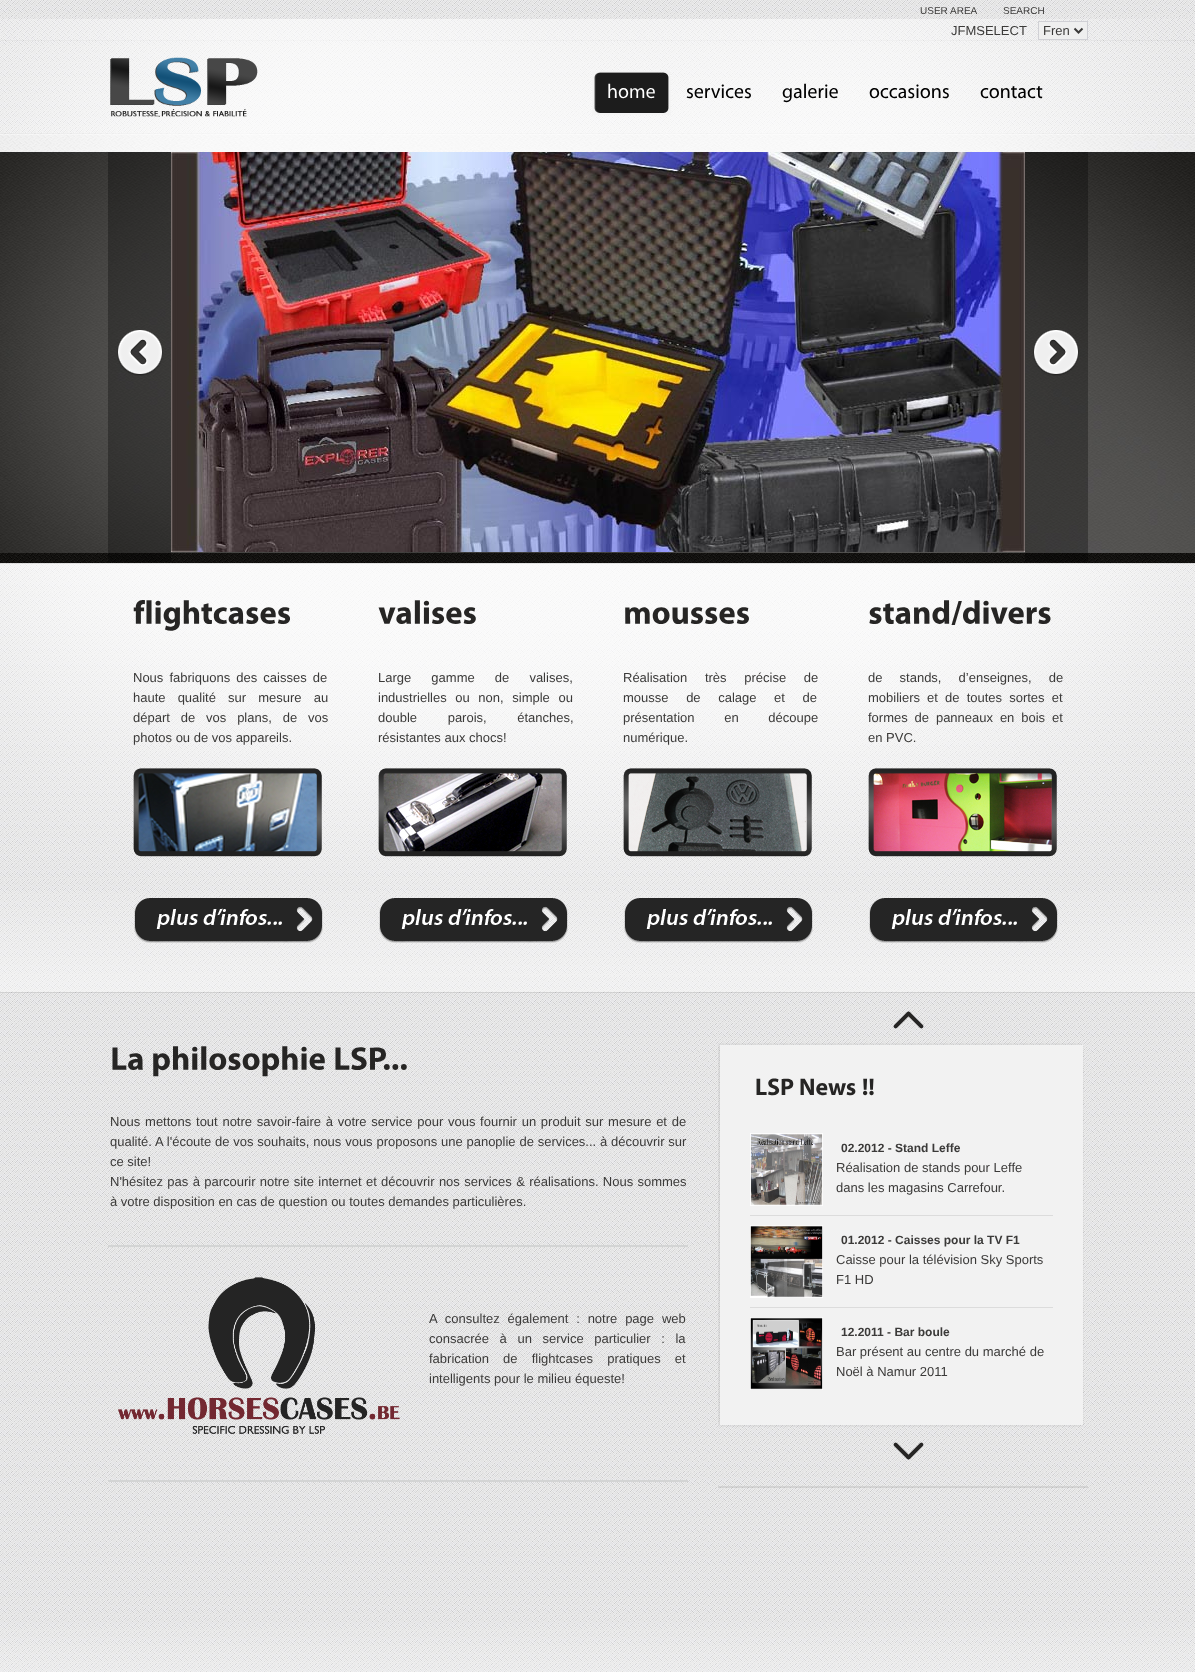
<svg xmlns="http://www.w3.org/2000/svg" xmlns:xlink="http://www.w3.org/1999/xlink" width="1195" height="1672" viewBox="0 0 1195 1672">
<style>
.cls-1{font:10px Liberation Sans;fill:#3b3a39}
.cls-2{font:13px Liberation Sans;fill:#3b3a39}
.cls-3{font:bold 12px Liberation Sans;fill:#3b3a39}
</style>
<rect width="100%" height="100%" fill="#ffffff"/>
<image xlink:href="image0.png" x="0" y="0" width="1195" height="1672"/>
<image xlink:href="image1.png" x="0" y="18" width="1195" height="23"/>
<image xlink:href="image2.png" x="0" y="19" width="1195" height="22"/>
<rect fill="#efefef" stroke="#d0d0d5" x="1038.5" y="21.5" width="49" height="18"/>
<path fill="none" stroke="#3b3a39" stroke-width="2" d="M1074.5 28.5L1078.5 32.5L1082.5 28.5"/>
<image xlink:href="image3.png" x="0" y="41" width="1195" height="92"/>
<image xlink:href="image4.png" x="110" y="57" width="148" height="60"/>
<image xlink:href="image5.png" x="592" y="71" width="79" height="44"/>
<image xlink:href="image6.png" x="592" y="72" width="8" height="41"/>
<image xlink:href="image7.png" x="608" y="83" width="47" height="16"/>
<image xlink:href="image8.png" x="686" y="84" width="65" height="15"/>
<image xlink:href="image9.png" x="782" y="83" width="56" height="20"/>
<image xlink:href="image10.png" x="869" y="84" width="80" height="15"/>
<image xlink:href="image11.png" x="980" y="86" width="63" height="13"/>
<image xlink:href="image12.png" x="0" y="553" width="1195" height="10"/>
<image xlink:href="image13.png" x="0" y="133" width="1195" height="420"/>
<rect fill="#000000" fill-opacity="0.3" x="108" y="152" width="63" height="410"/>
<image xlink:href="image14.png" x="117" y="330" width="46" height="46"/>
<image xlink:href="image15.png" x="171" y="152" width="854" height="400"/>
<rect fill="#000000" fill-opacity="0.3" x="1025" y="152" width="63" height="410"/>
<image xlink:href="image16.png" x="1033" y="330" width="46" height="46"/>
<image xlink:href="image17.png" x="0" y="563" width="1195" height="414"/>
<image xlink:href="image18.png" x="0" y="890" width="1195" height="103"/>
<image xlink:href="image19.png" x="133" y="600" width="157" height="31"/>
<image xlink:href="image20.png" x="133" y="768" width="189" height="89"/>
<image xlink:href="image21.png" x="134" y="898" width="189" height="45"/>
<image xlink:href="image22.png" x="378" y="600" width="98" height="24"/>
<image xlink:href="image23.png" x="378" y="768" width="189" height="89"/>
<image xlink:href="image24.png" x="379" y="898" width="189" height="45"/>
<image xlink:href="image25.png" x="625" y="607" width="124" height="17"/>
<image xlink:href="image26.png" x="623" y="768" width="189" height="89"/>
<image xlink:href="image27.png" x="624" y="898" width="189" height="45"/>
<image xlink:href="image28.png" x="869" y="600" width="182" height="25"/>
<image xlink:href="image29.png" x="868" y="768" width="189" height="89"/>
<image xlink:href="image30.png" x="869" y="898" width="189" height="45"/>
<image xlink:href="image31.png" x="0" y="1624" width="1195" height="48"/>
<image xlink:href="image32.png" x="112" y="1047" width="31" height="23"/>
<image xlink:href="image33.png" x="153" y="1046" width="172" height="31"/>
<image xlink:href="image34.png" x="335" y="1047" width="72" height="23"/>
<rect fill="#d3d4d4" x="108" y="1245" width="580" height="2"/>
<image xlink:href="image35.png" x="118" y="1277" width="282" height="157"/>
<rect fill="#d3d4d4" x="108" y="1480" width="580" height="2"/>
<image xlink:href="image36.png" x="893" y="1011" width="31" height="18"/>
<image xlink:href="image37.png" x="730" y="1043" width="354" height="356"/>
<image xlink:href="image38.png" x="718" y="1043" width="12" height="356"/>
<image xlink:href="image39.png" x="756" y="1078" width="38" height="18"/>
<image xlink:href="image40.png" x="800" y="1078" width="56" height="18"/>
<image xlink:href="image41.png" x="863" y="1078" width="11" height="18"/>
<rect fill="#dcdcdc" x="750" y="1215" width="303" height="1"/>
<image xlink:href="image42.png" x="750" y="1133" width="73" height="73"/>
<rect fill="#dcdcdc" x="750" y="1307" width="303" height="1"/>
<image xlink:href="image43.png" x="750" y="1225" width="73" height="73"/>
<image xlink:href="image44.png" x="750" y="1317" width="73" height="73"/>
<image xlink:href="image45.png" x="730" y="1399" width="354" height="28"/>
<image xlink:href="image46.png" x="718" y="1399" width="12" height="28"/>
<image xlink:href="image47.png" x="893" y="1442" width="31" height="18"/>
<rect fill="#272727" fill-opacity="0.1" x="718" y="1486" width="370" height="2"/>
<text class="cls-1" x="920" y="14">USER AREA</text>
<text class="cls-1" x="1003" y="14">SEARCH</text>
<text class="cls-2" x="951" y="35">JFMSELECT</text>
<text class="cls-2" x="1043" y="35">Fren</text>
<text class="cls-2"><tspan x="133" y="682" word-spacing="2.5">Nous fabriquons des caisses de</tspan><tspan x="133" y="702" word-spacing="8.5">haute qualité sur mesure au</tspan><tspan x="133" y="722" word-spacing="7.25">départ de vos plans, de vos</tspan><tspan x="133" y="742">photos ou de vos appareils.</tspan></text>
<text class="cls-2"><tspan x="378" y="682" word-spacing="16.5">Large gamme de valises,</tspan><tspan x="378" y="702" word-spacing="5">industrielles ou non, simple ou</tspan><tspan x="378" y="722" word-spacing="27">double parois, étanches,</tspan><tspan x="378" y="742">résistantes aux chocs!</tspan></text>
<text class="cls-2"><tspan x="623" y="682" word-spacing="14">Réalisation très précise de</tspan><tspan x="623" y="702" word-spacing="14">mousse de calage et de</tspan><tspan x="623" y="722" word-spacing="26">présentation en découpe</tspan><tspan x="623" y="742">numérique.</tspan></text>
<text class="cls-2"><tspan x="868" y="682" word-spacing="13.5">de stands, d’enseignes, de</tspan><tspan x="868" y="702" word-spacing="3.5">mobiliers et de toutes sortes et</tspan><tspan x="868" y="722" word-spacing="3.25">formes de panneaux en bois et</tspan><tspan x="868" y="742">en PVC.</tspan></text>
<text class="cls-2"><tspan x="110" y="1126" word-spacing="1.1">Nous mettons tout notre savoir-faire à votre service pour vous fournir un produit sur mesure et de</tspan><tspan x="110" y="1146" word-spacing="0.2">qualité. A l'écoute de vos souhaits, nous vous proposons une panoplie de services... à découvrir sur</tspan><tspan x="110" y="1166">ce site!</tspan><tspan x="110" y="1186" word-spacing="0.7">N'hésitez pas à parcourir notre site internet et découvrir nos services &amp; réalisations. Nous sommes</tspan><tspan x="110" y="1206">à votre disposition en cas de question ou toutes demandes particulières.</tspan></text>
<text class="cls-2"><tspan x="429" y="1323" word-spacing="4.25">A consultez également : notre page web</tspan><tspan x="429" y="1343" word-spacing="7">consacrée à un service particulier : la</tspan><tspan x="429" y="1363" word-spacing="10.5">fabrication de flightcases pratiques et</tspan><tspan x="429" y="1383">intelligents pour le milieu équeste!</tspan></text>
<text class="cls-3" x="841" y="1152">02.2012 - Stand Leffe</text>
<text class="cls-2"><tspan x="836" y="1172">Réalisation de stands pour Leffe</tspan><tspan x="836" y="1192">dans les magasins Carrefour.</tspan></text>
<text class="cls-3" x="841" y="1244">01.2012 - Caisses pour la TV F1</text>
<text class="cls-2"><tspan x="836" y="1264">Caisse pour la télévision Sky Sports</tspan><tspan x="836" y="1284">F1 HD</tspan></text>
<text class="cls-3" x="841" y="1336">12.2011 - Bar boule</text>
<text class="cls-2"><tspan x="836" y="1356">Bar présent au centre du marché de</tspan><tspan x="836" y="1376">Noël à Namur 2011</tspan></text>
</svg>
